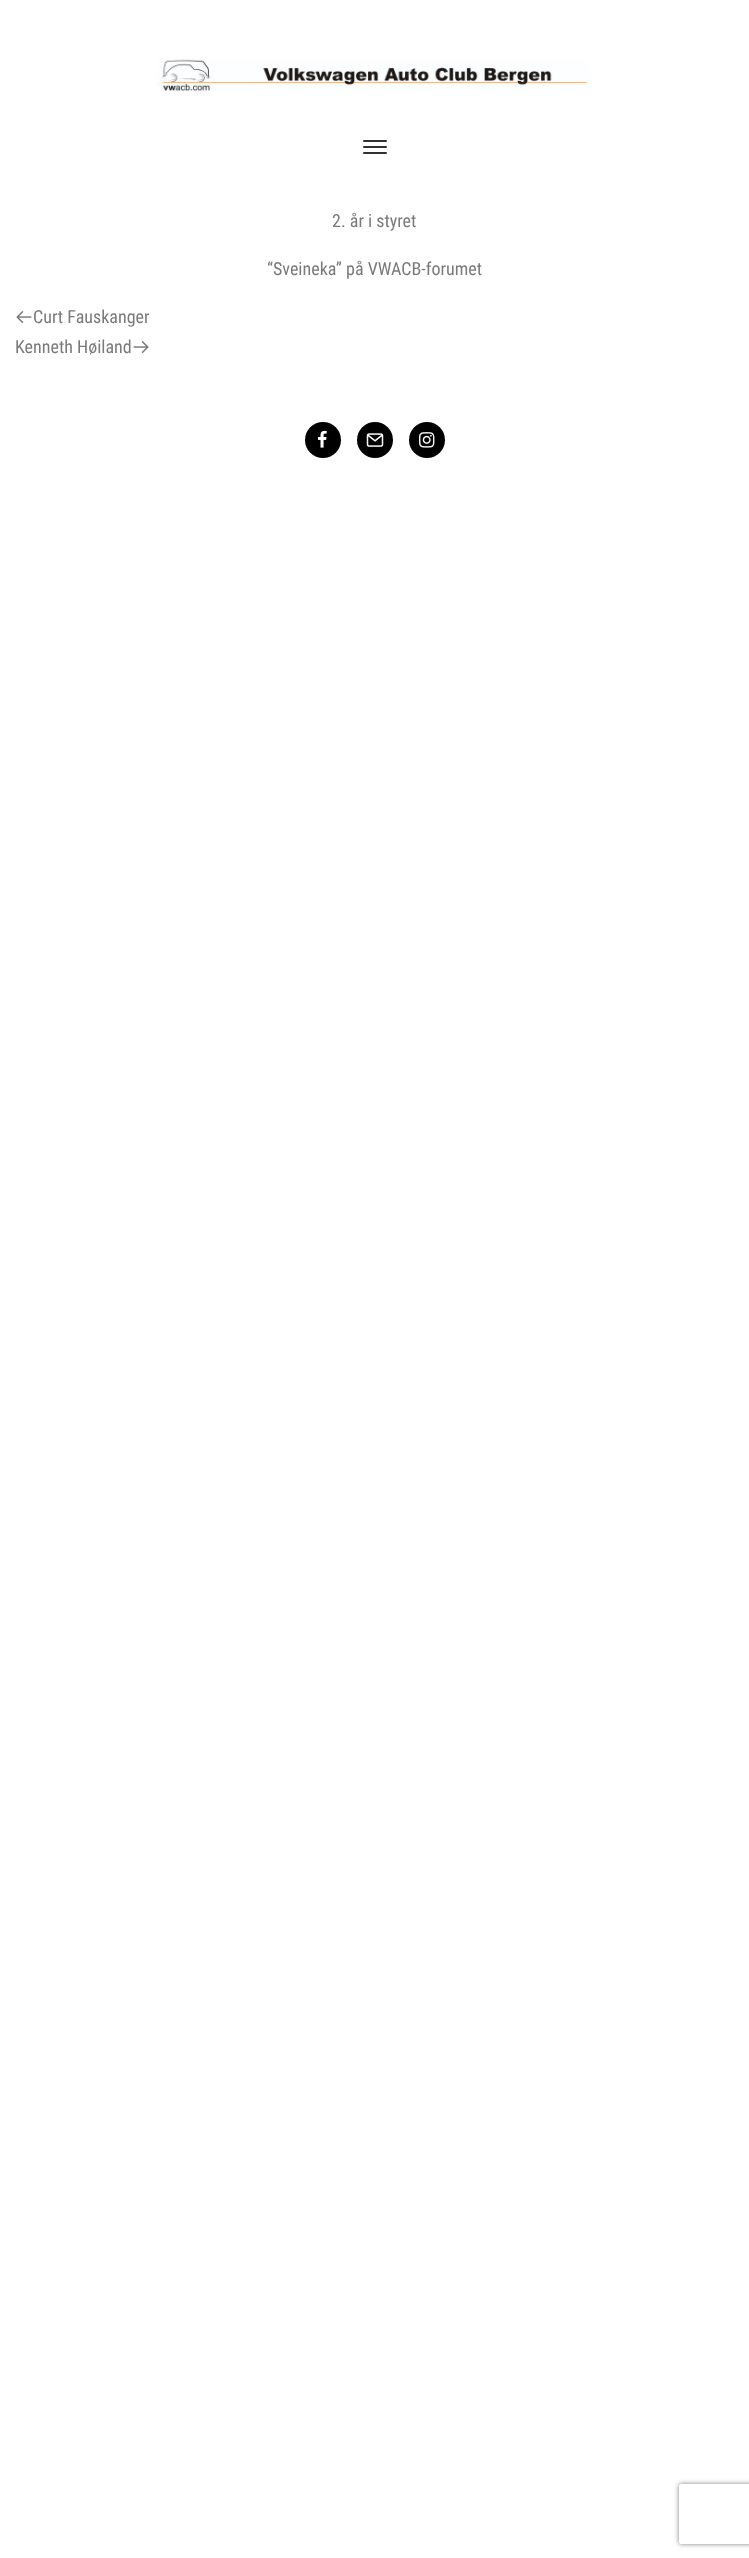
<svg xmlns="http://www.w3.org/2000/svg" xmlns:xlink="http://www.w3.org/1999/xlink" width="749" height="2558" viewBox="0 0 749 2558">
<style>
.cls-1{font:18px Roboto Condensed;fill:#7a7a7a}
</style>
<defs>
<clipPath id="clip1"><path d="M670 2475H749V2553H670ZM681 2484H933C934 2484 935 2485 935 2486V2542C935 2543 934 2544 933 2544H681C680 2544 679 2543 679 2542V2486C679 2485 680 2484 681 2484Z" clip-rule="evenodd"/></clipPath>
</defs>
<rect width="100%" height="100%" fill="#ffffff"/>
<image xlink:href="image0.png" x="157" y="59" width="432" height="33"/>
<rect fill="#303133" x="363" y="140" width="24" height="2" rx="1"/>
<rect fill="#303133" x="363" y="146" width="24" height="2" rx="1"/>
<rect fill="#303133" x="363" y="152" width="24" height="2" rx="1"/>
<image xlink:href="image1.png" x="16" y="311" width="16" height="12"/>
<image xlink:href="image2.png" x="133" y="341" width="16" height="12"/>
<circle fill="#000000" cx="323" cy="440" r="18"/>
<image xlink:href="image3.png" x="317" y="430" width="10" height="18"/>
<circle fill="#000000" cx="375" cy="440" r="18"/>
<image xlink:href="image4.png" x="366" y="433" width="18" height="14"/>
<circle fill="#000000" cx="427" cy="440" r="18"/>
<image xlink:href="image5.png" x="419" y="432" width="16" height="16"/>
<g clip-path="url(#clip1)">
<rect fill="#808080" filter="blur(2.5px)" x="679" y="2484" width="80" height="60" rx="2"/>
</g>
<text class="cls-1" x="332" y="227">2. år i styret</text>
<text class="cls-1" x="267" y="275">“Sveineka” på VWACB-forumet</text>
<text class="cls-1" x="33" y="323">Curt Fauskanger</text>
<text class="cls-1" x="15" y="353">Kenneth Høiland</text>
</svg>
